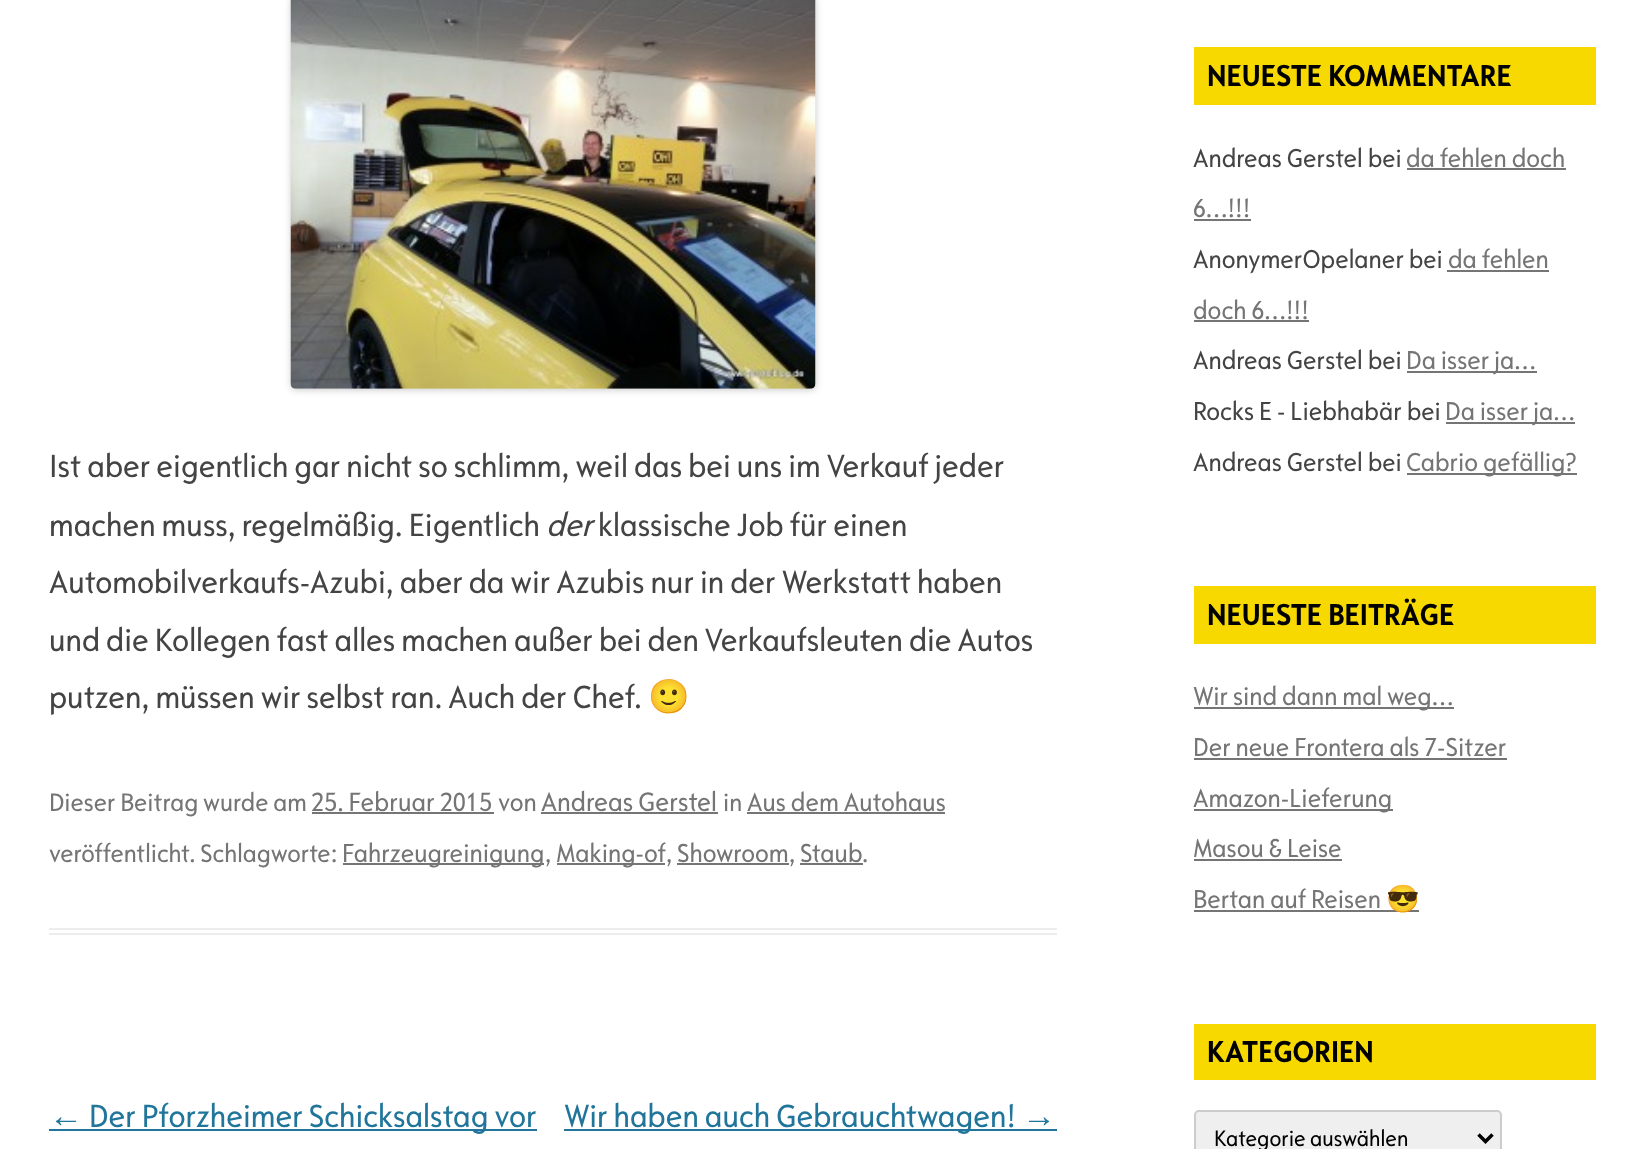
<svg xmlns="http://www.w3.org/2000/svg" xmlns:xlink="http://www.w3.org/1999/xlink" width="1644" height="1149" viewBox="0 0 1644 1149">
<style>
.cls-1{font:33.45px 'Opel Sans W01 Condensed';fill:#444444}
.cls-2{font:italic 34px 'Opel Sans W01 Condensed';fill:#444444}
.cls-3{font:33.45px Noto Color Emoji;fill:#444444}
.cls-4{font:26.5px 'Opel Sans W01 Condensed';fill:#757575}
.cls-5{font:27.5px 'Opel Sans W01 Condensed';fill:#757575}
.cls-6{font:27px 'Opel Sans W01 Condensed';fill:#757575}
.cls-7{font:28px 'Opel Sans W01 Condensed';fill:#757575}
.cls-8{font:34px Liberation Sans;fill:#21759b}
.cls-9{font:33.45px 'Opel Sans W01 Condensed';fill:#21759b}
.cls-10{font:bold 31.5px 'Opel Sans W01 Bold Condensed';fill:#000000}
.cls-11{font:27px 'Opel Sans W01 Condensed';fill:#444444}
.cls-12{font:26.5px 'Opel Sans W01 Condensed';fill:#444444}
.cls-13{font:27px Noto Color Emoji;fill:#757575}
.cls-14{font:23.25px 'Opel Sans W01 Condensed';fill:#000000}
</style>
<rect width="100%" height="100%" fill="#ffffff"/>
<rect fill="#ededed" x="49" y="928" width="1008" height="2"/>
<rect fill="#ededed" x="49" y="933" width="1008" height="2"/>
<rect fill="#000000" fill-opacity="0.2" filter="blur(3.5px)" x="291" y="-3" width="525" height="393" rx="5"/>
<image xlink:href="image0.png" x="290" y="0" width="526" height="389"/>
<rect fill="#757575" x="312" y="812" width="182" height="2"/>
<rect fill="#757575" x="541" y="812" width="177" height="2"/>
<rect fill="#757575" x="747" y="812" width="198" height="2"/>
<rect fill="#757575" x="343" y="863" width="201" height="2"/>
<rect fill="#757575" x="557" y="863" width="108" height="2"/>
<rect fill="#757575" x="677" y="863" width="112" height="2"/>
<rect fill="#757575" x="800" y="863" width="63" height="2"/>
<rect fill="#21759b" x="49" y="1129" width="488" height="2"/>
<rect fill="#21759b" x="564" y="1129" width="493" height="2"/>
<rect fill="#f7d900" x="1194" y="47" width="402" height="58"/>
<rect fill="#757575" x="1407" y="168" width="159" height="2"/>
<rect fill="#757575" x="1194" y="219" width="57" height="2"/>
<rect fill="#757575" x="1447" y="270" width="102" height="2"/>
<rect fill="#757575" x="1194" y="320" width="115" height="2"/>
<rect fill="#757575" x="1407" y="371" width="130" height="2"/>
<rect fill="#757575" x="1446" y="422" width="129" height="2"/>
<rect fill="#757575" x="1407" y="473" width="170" height="2"/>
<rect fill="#f7d900" x="1194" y="586" width="402" height="58"/>
<rect fill="#757575" x="1194" y="707" width="260" height="2"/>
<rect fill="#757575" x="1194" y="758" width="313" height="2"/>
<rect fill="#757575" x="1194" y="809" width="199" height="2"/>
<rect fill="#757575" x="1194" y="859" width="148" height="2"/>
<rect fill="#757575" x="1194" y="910" width="225" height="2"/>
<rect fill="#f7d900" x="1194" y="1024" width="402" height="56"/>
<rect fill="#efefef" stroke="#cccccc" stroke-width="2" x="1195" y="1111" width="306" height="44" rx="4"/>
<path fill="none" stroke="#000000" stroke-width="3.5" d="M1478.5 1134.5L1485.5 1141.5L1492.5 1134.5"/>
<text class="cls-1"><tspan x="49" y="477">Ist aber eigentlich gar nicht so schlimm, weil das bei uns im Verkauf jeder</tspan><tspan x="49" y="536">machen muss, regelmäßig. Eigentlich</tspan></text>
<text class="cls-2" x="546" y="536">der</text>
<text class="cls-1" x="598" y="536">klassische Job für einen</text>
<text class="cls-1"><tspan x="49" y="593">Automobilverkaufs-Azubi, aber da wir Azubis nur in der Werkstatt haben</tspan><tspan x="49" y="651">und die Kollegen fast alles machen außer bei den Verkaufsleuten die Autos</tspan><tspan x="49" y="708">putzen, müssen wir selbst ran. Auch der Chef.</tspan></text>
<text class="cls-3" x="648" y="708">🙂</text>
<text class="cls-4" x="49" y="811">Dieser Beitrag wurde am</text>
<text class="cls-5" x="311" y="811">25. Februar 2015</text>
<text class="cls-6" x="498" y="811">von</text>
<text class="cls-7" x="541" y="811">Andreas Gerstel</text>
<text class="cls-4" x="723" y="811">in</text>
<text class="cls-6" x="747" y="811">Aus dem Autohaus</text>
<text class="cls-4" x="49" y="862">veröffentlicht. Schlagworte:</text>
<text class="cls-6" x="342" y="862">Fahrzeugreinigung</text>
<text class="cls-4" x="545" y="862">,</text>
<text class="cls-6" x="556" y="862">Making-of</text>
<text class="cls-4" x="666" y="862">,</text>
<text class="cls-6" x="677" y="862">Showroom</text>
<text class="cls-4" x="789" y="862">,</text>
<text class="cls-6" x="800" y="862">Staub</text>
<text class="cls-4" x="862" y="862">.</text>
<text class="cls-8" x="49" y="1127">←</text>
<text class="cls-9" x="89" y="1127">Der Pforzheimer Schicksalstag vor</text>
<text class="cls-9" x="564" y="1127">Wir haben auch Gebrauchtwagen!</text>
<text class="cls-8" x="1022" y="1127">→</text>
<text class="cls-10" x="1207" y="86">NEUESTE KOMMENTARE</text>
<text class="cls-11" x="1193" y="167">Andreas Gerstel</text>
<text class="cls-12" x="1368" y="167">bei</text>
<text class="cls-6" x="1406" y="167">da fehlen doch</text>
<text class="cls-6" x="1193" y="217">6…!!!</text>
<text class="cls-11" x="1193" y="268">AnonymerOpelaner</text>
<text class="cls-12" x="1409" y="268">bei</text>
<text class="cls-6" x="1448" y="268">da fehlen</text>
<text class="cls-6" x="1193" y="319">doch 6…!!!</text>
<text class="cls-11" x="1193" y="369">Andreas Gerstel</text>
<text class="cls-12" x="1368" y="369">bei</text>
<text class="cls-6" x="1406" y="369">Da isser ja…</text>
<text class="cls-11" x="1193" y="420">Rocks E - Liebhabär</text>
<text class="cls-12" x="1407" y="420">bei</text>
<text class="cls-6" x="1445" y="420">Da isser ja…</text>
<text class="cls-11" x="1193" y="471">Andreas Gerstel</text>
<text class="cls-12" x="1368" y="471">bei</text>
<text class="cls-6" x="1406" y="471">Cabrio gefällig?</text>
<text class="cls-10" x="1207" y="625">NEUESTE BEITRÄGE</text>
<text class="cls-6"><tspan x="1193" y="705">Wir sind dann mal weg…</tspan><tspan x="1193" y="756">Der neue Frontera als 7-Sitzer</tspan><tspan x="1193" y="807">Amazon-Lieferung</tspan><tspan x="1193" y="857">Masou &amp; Leise</tspan><tspan x="1193" y="908">Bertan auf Reisen</tspan></text>
<text class="cls-13" x="1386" y="908">😎</text>
<text class="cls-10" x="1207" y="1062">KATEGORIEN</text>
<text class="cls-14" x="1214" y="1146">Kategorie auswählen</text>
</svg>
